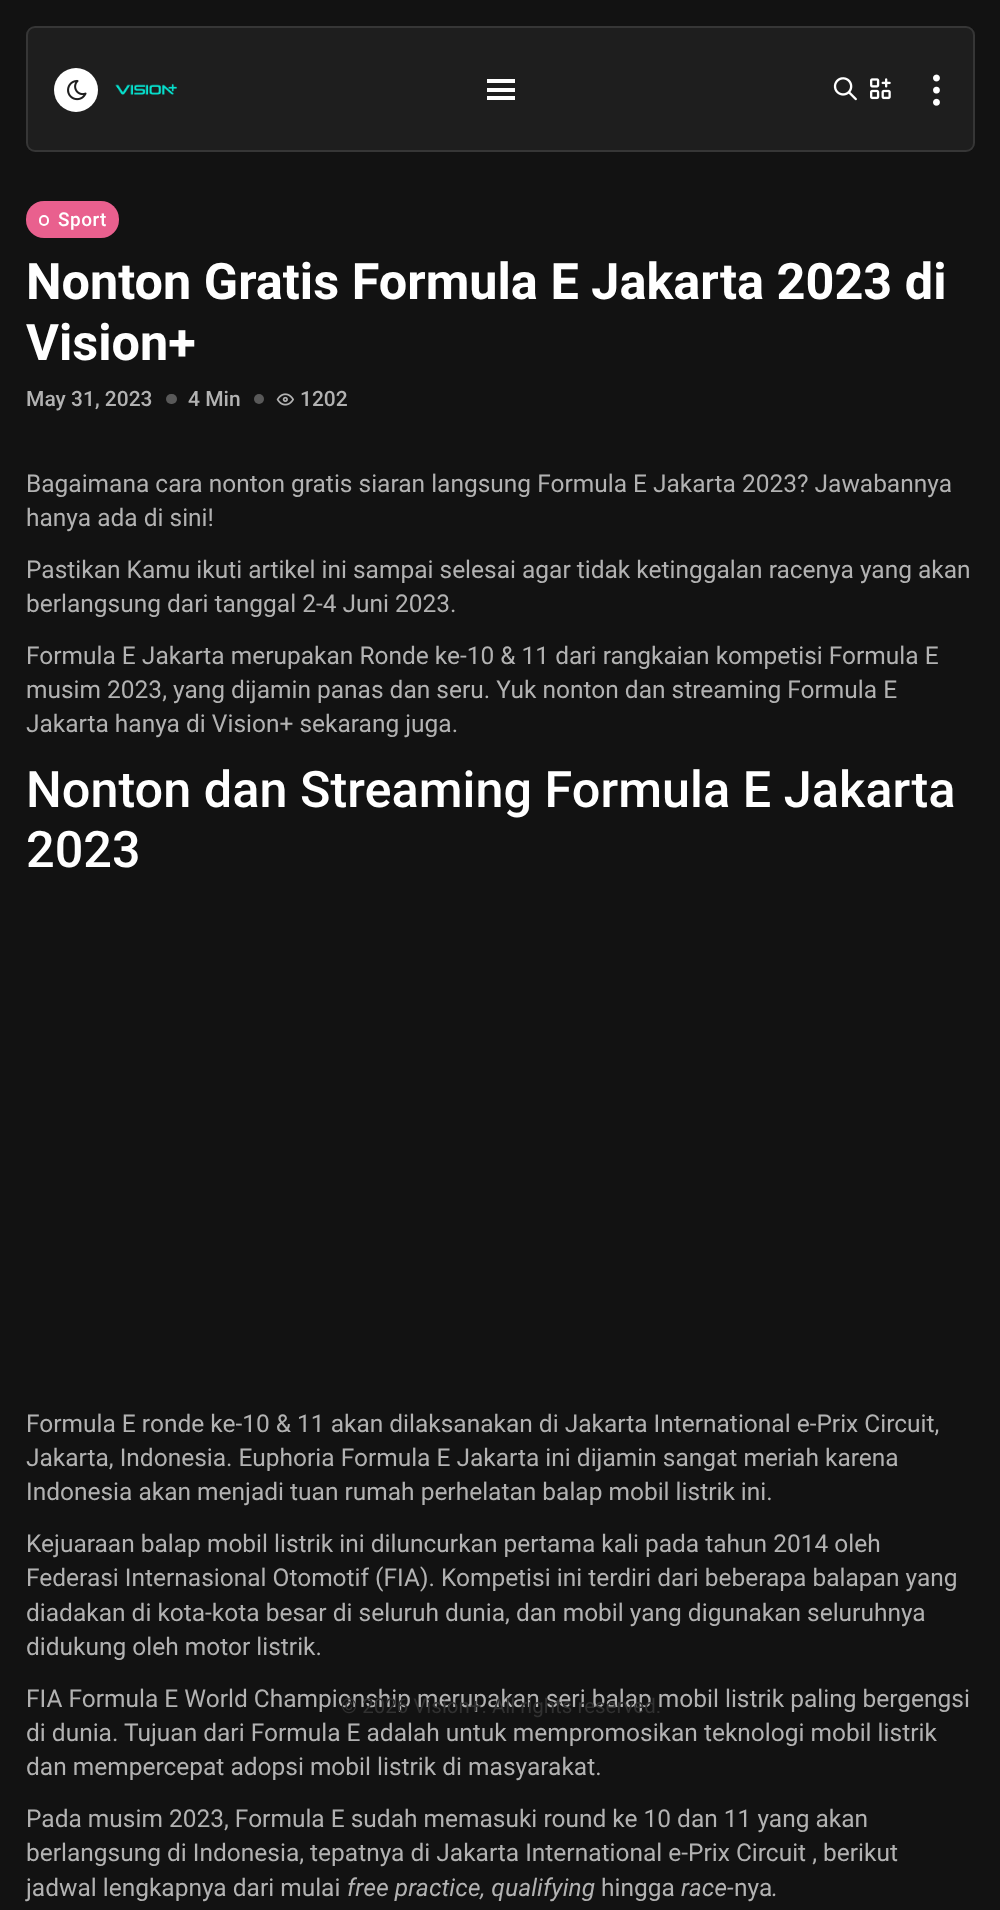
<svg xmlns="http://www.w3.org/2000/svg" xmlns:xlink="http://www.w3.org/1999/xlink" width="1000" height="1910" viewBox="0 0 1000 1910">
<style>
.cls-1{font:500 19px Roboto;letter-spacing:0.5px;fill:#ffffff}
.cls-2{font:bold 50.4px Roboto;fill:#ffffff}
.cls-3{font:500 21px Roboto;fill:#b2b2b2}
.cls-4{font:24.5px Roboto;fill:#b2b2b2}
.cls-5{font:500 50.4px Roboto;fill:#ffffff}
.cls-6{font:italic 24.5px Roboto;fill:#b2b2b2}
.cls-7{font:20.5px Roboto;fill:#313131}
</style>
<rect width="100%" height="100%" fill="#121212"/>
<rect fill="#1e1e1e" x="26" y="26" width="949" height="126" rx="9"/>
<rect fill="none" stroke="#989898" stroke-opacity="0.2" stroke-width="2" x="27" y="27" width="947" height="124" rx="8"/>
<circle fill="#ffffff" cx="76" cy="90" r="22"/>
<image xlink:href="image0.png" x="67" y="79" width="20" height="22"/>
<image xlink:href="image1.png" x="115" y="83" width="62" height="12"/>
<rect fill="#ffffff" x="487" y="79" width="28" height="4"/>
<rect fill="#ffffff" x="487" y="88" width="28" height="4"/>
<rect fill="#ffffff" x="487" y="96" width="28" height="4"/>
<image xlink:href="image2.png" x="833" y="77" width="24" height="24"/>
<image xlink:href="image3.png" x="870" y="78" width="21" height="22"/>
<image xlink:href="image4.png" x="933" y="74" width="7" height="32"/>
<rect fill="#e9608e" x="26" y="201" width="93" height="37" rx="18"/>
<rect fill="none" stroke="#ffffff" stroke-width="2" x="40" y="216" width="8" height="9" rx="4"/>
<rect fill="#595959" x="166" y="394" width="11" height="10" rx="5"/>
<circle fill="#595959" cx="259" cy="399" r="5"/>
<image xlink:href="image5.png" x="276" y="393" width="18" height="13"/>
<text class="cls-1" x="58" y="226">Sport</text>
<text class="cls-2"><tspan x="26" y="299">Nonton Gratis Formula E Jakarta 2023 di</tspan><tspan x="26" y="360">Vision+</tspan></text>
<text class="cls-3" x="26" y="406">May 31, 2023</text>
<text class="cls-3" x="188" y="406">4 Min</text>
<text class="cls-3" x="300" y="406">1202</text>
<text class="cls-4"><tspan x="26" y="492">Bagaimana cara nonton gratis siaran langsung Formula E Jakarta 2023? Jawabannya</tspan><tspan x="26" y="526">hanya ada di sini!</tspan></text>
<text class="cls-4"><tspan x="26" y="578">Pastikan Kamu ikuti artikel ini sampai selesai agar tidak ketinggalan racenya yang akan</tspan><tspan x="26" y="612">berlangsung dari tanggal 2-4 Juni 2023.</tspan></text>
<text class="cls-4"><tspan x="26" y="664">Formula E Jakarta merupakan Ronde ke-10 &amp; 11 dari rangkaian kompetisi Formula E</tspan><tspan x="26" y="698">musim 2023, yang dijamin panas dan seru. Yuk nonton dan streaming Formula E</tspan><tspan x="26" y="732">Jakarta hanya di Vision+ sekarang juga.</tspan></text>
<text class="cls-5"><tspan x="26" y="807">Nonton dan Streaming Formula E Jakarta</tspan><tspan x="26" y="867">2023</tspan></text>
<text class="cls-4"><tspan x="26" y="1432">Formula E ronde ke-10 &amp; 11 akan dilaksanakan di Jakarta International e-Prix Circuit,</tspan><tspan x="26" y="1466">Jakarta, Indonesia. Euphoria Formula E Jakarta ini dijamin sangat meriah karena</tspan><tspan x="26" y="1500">Indonesia akan menjadi tuan rumah perhelatan balap mobil listrik ini.</tspan></text>
<text class="cls-4"><tspan x="26" y="1552">Kejuaraan balap mobil listrik ini diluncurkan pertama kali pada tahun 2014 oleh</tspan><tspan x="26" y="1586">Federasi Internasional Otomotif (FIA). Kompetisi ini terdiri dari beberapa balapan yang</tspan><tspan x="26" y="1621">diadakan di kota-kota besar di seluruh dunia, dan mobil yang digunakan seluruhnya</tspan><tspan x="26" y="1655">didukung oleh motor listrik.</tspan></text>
<text class="cls-4"><tspan x="26" y="1707">FIA Formula E World Championship merupakan seri balap mobil listrik paling bergengsi</tspan><tspan x="26" y="1741">di dunia. Tujuan dari Formula E adalah untuk mempromosikan teknologi mobil listrik</tspan><tspan x="26" y="1775">dan mempercepat adopsi mobil listrik di masyarakat.</tspan></text>
<text class="cls-4"><tspan x="26" y="1827">Pada musim 2023, Formula E sudah memasuki round ke 10 dan 11 yang akan</tspan><tspan x="26" y="1861">berlangsung di Indonesia, tepatnya di Jakarta International e-Prix Circuit , berikut</tspan><tspan x="26" y="1896">jadwal lengkapnya dari mulai</tspan></text>
<text class="cls-6" x="347" y="1896">free practice, qualifying</text>
<text class="cls-4" x="601" y="1896">hingga</text>
<text class="cls-6" x="681" y="1896">race-</text>
<text class="cls-4" x="734" y="1896">nya</text>
<text class="cls-6" x="772" y="1896">.</text>
<text class="cls-7" x="341" y="1713">© 2026 Vision+. All rights reserved.</text>
</svg>
